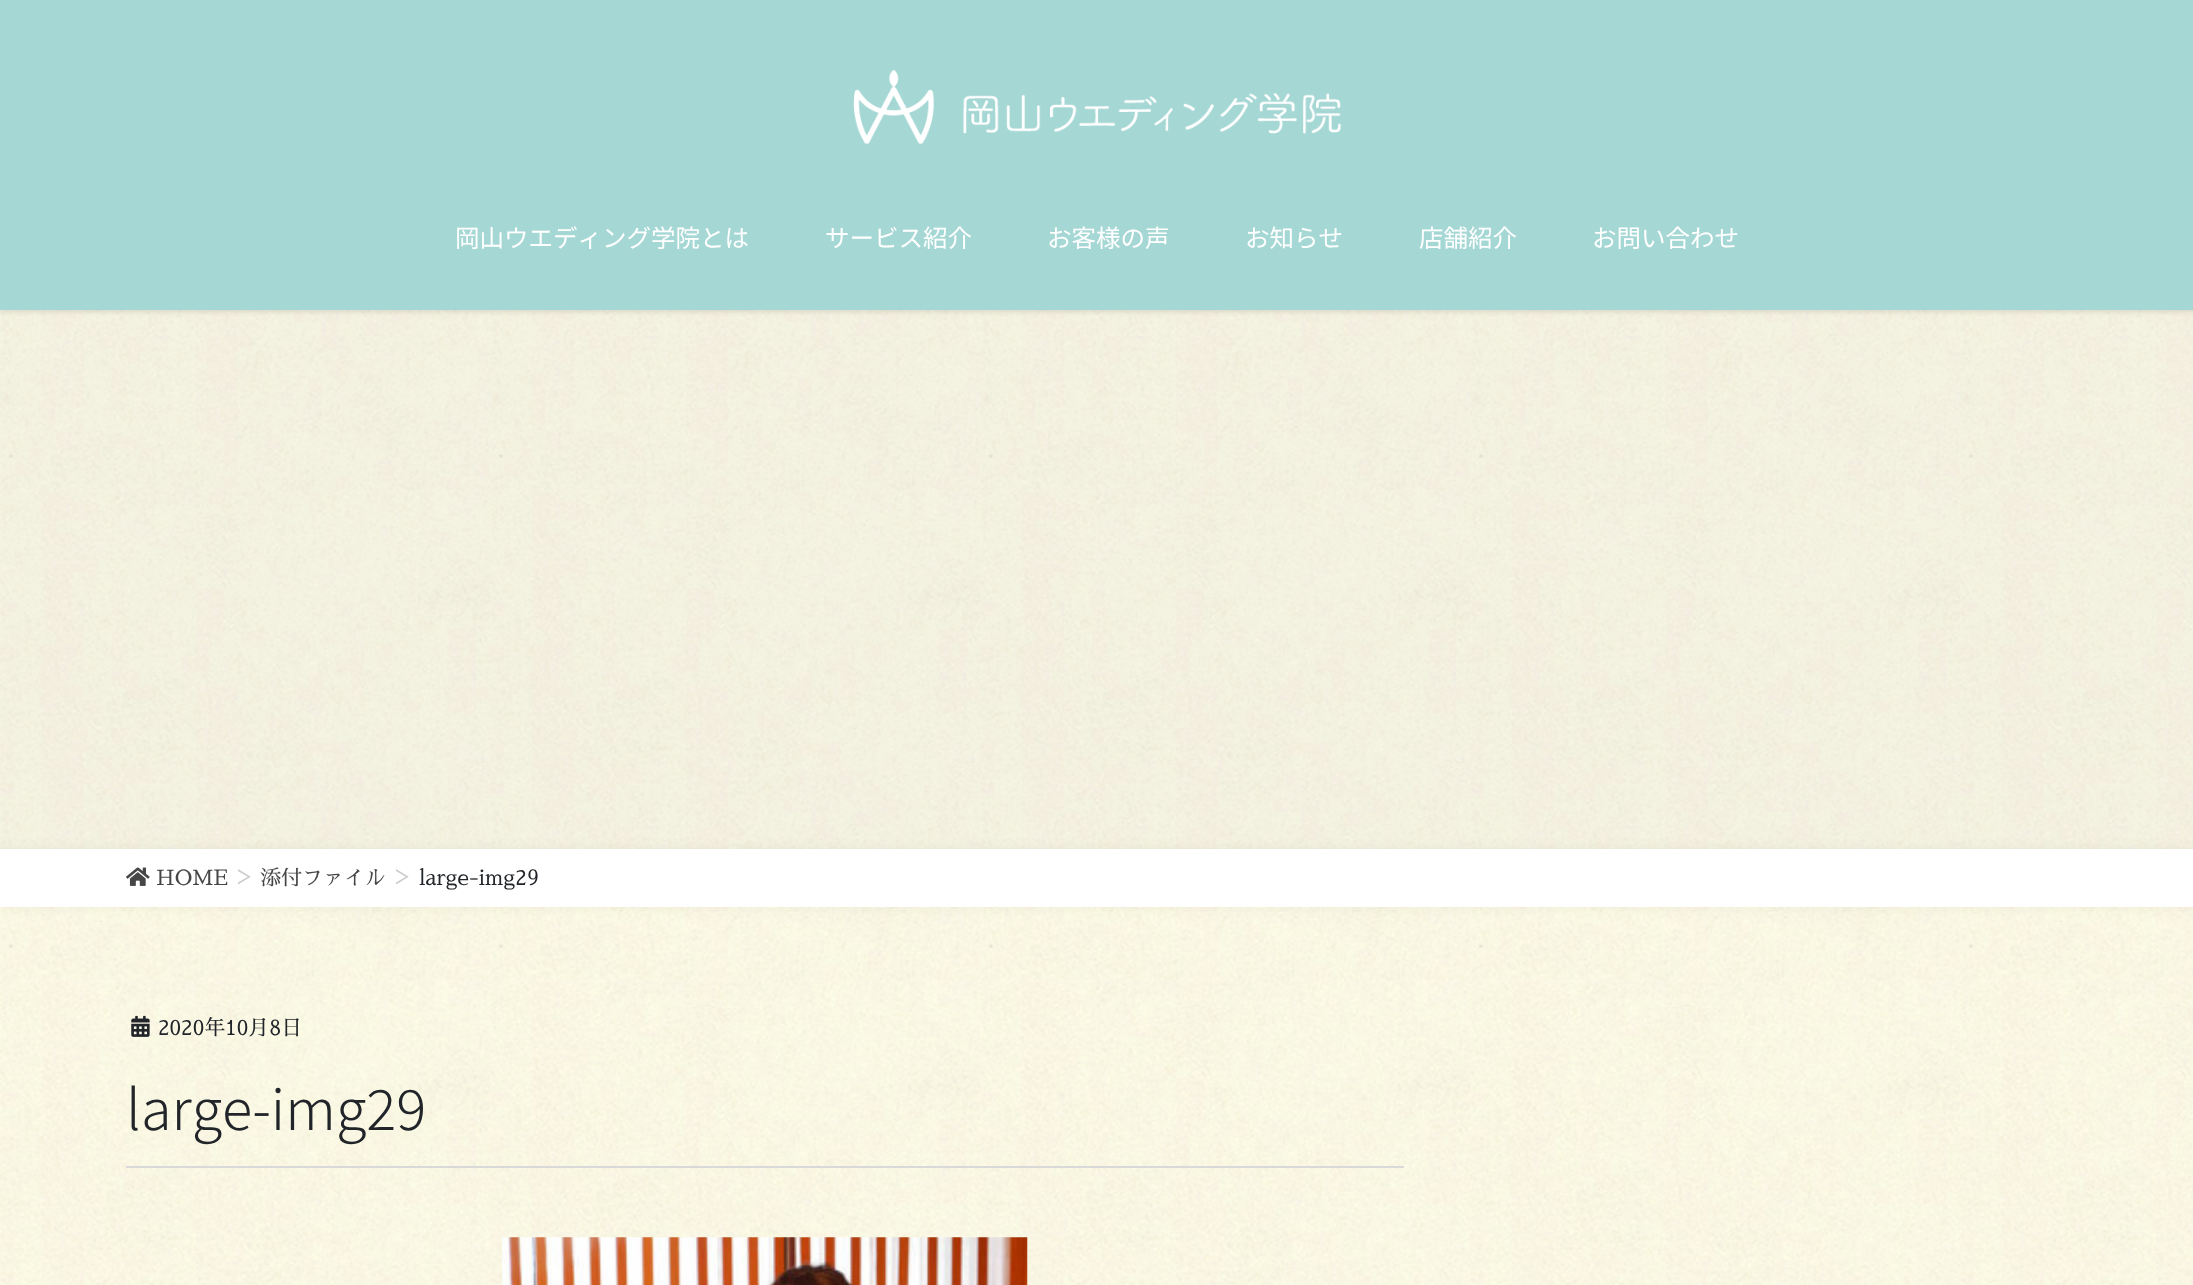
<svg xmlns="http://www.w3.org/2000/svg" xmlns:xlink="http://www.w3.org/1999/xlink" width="2193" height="1285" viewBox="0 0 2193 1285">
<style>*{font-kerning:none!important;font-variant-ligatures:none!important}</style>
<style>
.cls-1{font:24.5px Noto Sans JP;fill:#ffffff}
.cls-2{font:21px Sawarabi Mincho;fill:#464646}
.cls-3{font:28px Sawarabi Mincho;fill:#cccccc}
.cls-4{font:21px Sawarabi Mincho;fill:#212529}
.cls-5{font:300 56px Noto Sans JP;fill:#212529}
</style>
<rect width="100%" height="100%" fill="#ffffff"/>
<image xlink:href="image0.png" x="0" y="310" width="2193" height="975"/>
<rect fill="#d3d3d3" fill-opacity="0.15" x="0" y="310" width="2193" height="539"/>
<rect fill="#000000" fill-opacity="0.1" filter="blur(2.5px)" x="0" y="2" width="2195" height="310"/>
<rect fill="#a5d7d4" x="0" y="0" width="2193" height="310"/>
<image xlink:href="image1.png" x="853" y="69" width="489" height="76"/>
<rect fill="#000000" fill-opacity="0.05" filter="blur(6px)" x="0" y="849" width="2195" height="58"/>
<rect fill="#ffffff" x="0" y="849" width="2193" height="58"/>
<image xlink:href="image2.png" x="126" y="867" width="24" height="19"/>
<image xlink:href="image3.png" x="131" y="1015" width="19" height="22"/>
<rect fill="#d9d9d9" x="126" y="1166" width="1278" height="2"/>
<image xlink:href="image4.png" x="502" y="1237" width="526" height="48"/>
<text class="cls-1" x="455" y="247">岡山ウエディング学院とは</text>
<text class="cls-1" x="825" y="247">サービス紹介</text>
<text class="cls-1" x="1047" y="247">お客様の声</text>
<text class="cls-1" x="1245" y="247">お知らせ</text>
<text class="cls-1" x="1419" y="247">店舗紹介</text>
<text class="cls-1" x="1592" y="247">お問い合わせ</text>
<text class="cls-2" x="156" y="885">HOME</text>
<text class="cls-3" x="237" y="885">&gt;</text>
<text class="cls-2" x="260" y="885">添付ファイル</text>
<text class="cls-3" x="395" y="885">&gt;</text>
<text class="cls-4" x="419" y="885">large-img29</text>
<text class="cls-4" x="158" y="1035">2020年10月8日</text>
<text class="cls-5" x="126" y="1130">large-img29</text>
</svg>
